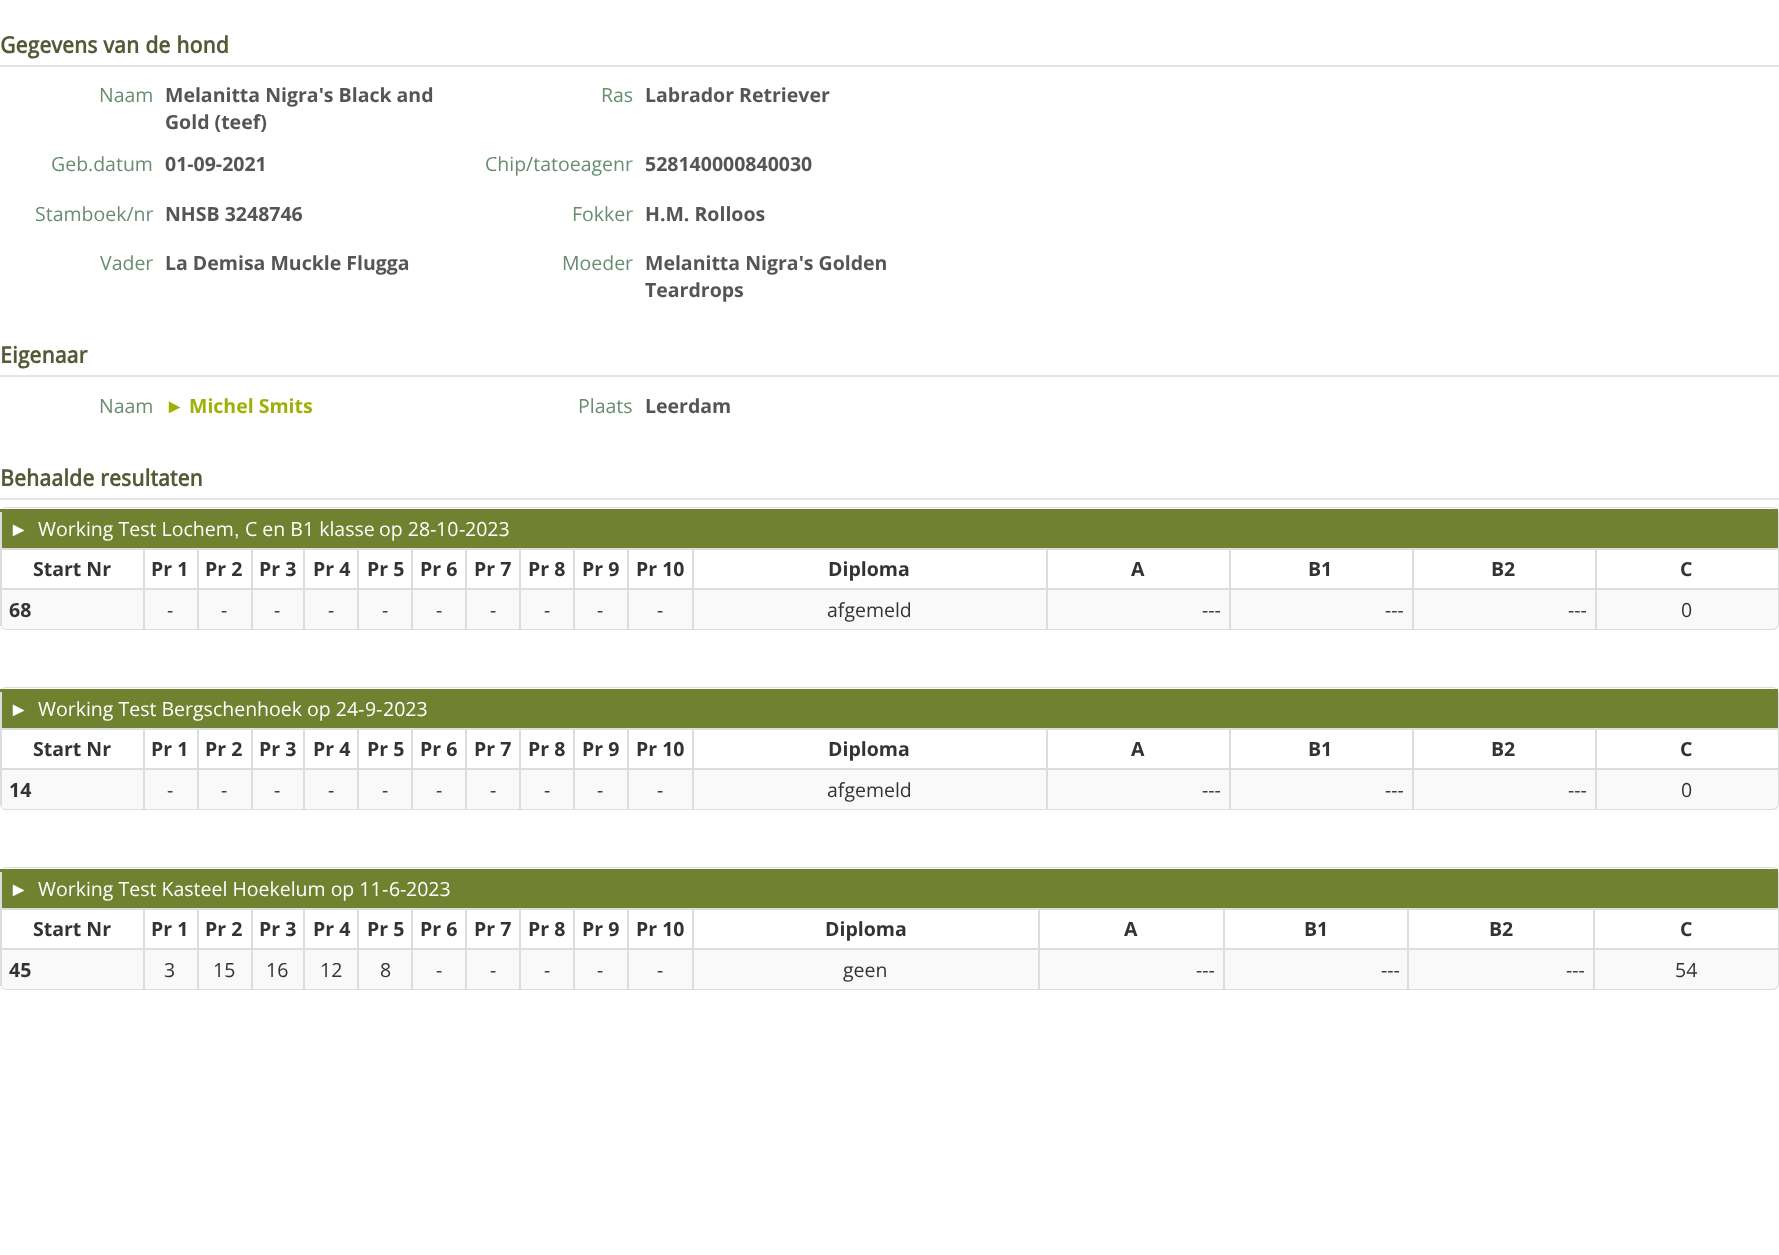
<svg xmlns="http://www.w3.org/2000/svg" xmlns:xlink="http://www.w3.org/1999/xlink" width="1779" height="1255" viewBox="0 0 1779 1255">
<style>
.cls-1{font:bold 22.5px Droid Sans;fill:#535b36}
.cls-2{font:19.5px Open Sans;fill:#688d6f}
.cls-3{font:bold 19.5px Open Sans;fill:#555555}
.cls-4{font:bold 19.5px Liberation Sans;fill:#9fb007}
.cls-5{font:bold 19.5px Open Sans;fill:#9fb007}
.cls-6{font:19.5px Liberation Sans;fill:#ffffff}
.cls-7{font:19.5px Open Sans;fill:#ffffff}
.cls-8{font:bold 19.5px Open Sans;fill:#333333}
.cls-9{font:19.5px Open Sans;fill:#333333}
</style>
<rect width="100%" height="100%" fill="#ffffff"/>
<rect fill="#e5e5e5" x="0" y="65" width="1779" height="2"/>
<rect fill="#e5e5e5" x="0" y="375" width="1779" height="2"/>
<rect fill="#e5e5e5" x="0" y="498" width="1779" height="2"/>
<path fill="#dddddd" fill-rule="evenodd" d="M6 507H1773C1776 507 1779 510 1779 513V624C1779 627 1776 630 1773 630H6C3 630 0 627 0 624V513C0 510 3 507 6 507ZM6 508H1773C1775 508 1778 511 1778 513V624C1778 626 1775 628 1773 628H6C3 628 0 626 0 624V513C0 511 3 508 6 508Z"/>
<rect fill="#708130" x="0" y="509" width="1778" height="39"/>
<rect fill="#dddddd" x="0" y="512" width="2" height="36"/>
<rect fill="#dddddd" x="0" y="548" width="1778" height="2"/>
<rect fill="#dddddd" x="0" y="548" width="2" height="40"/>
<rect fill="#dddddd" x="143" y="548" width="2" height="40"/>
<rect fill="#dddddd" x="197" y="548" width="2" height="40"/>
<rect fill="#dddddd" x="251" y="548" width="2" height="40"/>
<rect fill="#dddddd" x="303" y="548" width="2" height="40"/>
<rect fill="#dddddd" x="357" y="548" width="2" height="40"/>
<rect fill="#dddddd" x="411" y="548" width="2" height="40"/>
<rect fill="#dddddd" x="465" y="548" width="2" height="40"/>
<rect fill="#dddddd" x="519" y="548" width="2" height="40"/>
<rect fill="#dddddd" x="573" y="548" width="2" height="40"/>
<rect fill="#dddddd" x="627" y="548" width="2" height="40"/>
<rect fill="#dddddd" x="692" y="548" width="2" height="40"/>
<rect fill="#dddddd" x="1046" y="548" width="2" height="40"/>
<rect fill="#dddddd" x="1229" y="548" width="2" height="40"/>
<rect fill="#dddddd" x="1412" y="548" width="2" height="40"/>
<rect fill="#dddddd" x="1595" y="548" width="2" height="40"/>
<path fill="#f9f9f9" d="M0 588H143V629H6C2.5 629 0 626.5 0 623Z"/>
<rect fill="#dddddd" x="0" y="588" width="1595" height="2"/>
<rect fill="#dddddd" x="0" y="588" width="2" height="38"/>
<rect fill="#f9f9f9" x="145" y="590" width="52" height="39"/>
<rect fill="#dddddd" x="143" y="588" width="2" height="41"/>
<rect fill="#f9f9f9" x="199" y="590" width="52" height="39"/>
<rect fill="#dddddd" x="197" y="588" width="2" height="41"/>
<rect fill="#f9f9f9" x="253" y="590" width="50" height="39"/>
<rect fill="#dddddd" x="251" y="588" width="2" height="41"/>
<rect fill="#f9f9f9" x="305" y="590" width="52" height="39"/>
<rect fill="#dddddd" x="303" y="588" width="2" height="41"/>
<rect fill="#f9f9f9" x="359" y="590" width="52" height="39"/>
<rect fill="#dddddd" x="357" y="588" width="2" height="41"/>
<rect fill="#f9f9f9" x="413" y="590" width="52" height="39"/>
<rect fill="#dddddd" x="411" y="588" width="2" height="41"/>
<rect fill="#f9f9f9" x="467" y="590" width="52" height="39"/>
<rect fill="#dddddd" x="465" y="588" width="2" height="41"/>
<rect fill="#f9f9f9" x="521" y="590" width="52" height="39"/>
<rect fill="#dddddd" x="519" y="588" width="2" height="41"/>
<rect fill="#f9f9f9" x="575" y="590" width="52" height="39"/>
<rect fill="#dddddd" x="573" y="588" width="2" height="41"/>
<rect fill="#f9f9f9" x="629" y="590" width="63" height="39"/>
<rect fill="#dddddd" x="627" y="588" width="2" height="41"/>
<rect fill="#f9f9f9" x="694" y="590" width="352" height="39"/>
<rect fill="#dddddd" x="692" y="588" width="2" height="41"/>
<rect fill="#f9f9f9" x="1048" y="590" width="181" height="39"/>
<rect fill="#dddddd" x="1046" y="588" width="2" height="41"/>
<rect fill="#f9f9f9" x="1231" y="590" width="181" height="39"/>
<rect fill="#dddddd" x="1229" y="588" width="2" height="41"/>
<rect fill="#f9f9f9" x="1414" y="590" width="181" height="39"/>
<rect fill="#dddddd" x="1412" y="588" width="2" height="41"/>
<path fill="#f9f9f9" d="M1595 588H1778V623C1778 626.5 1775.5 629 1772 629H1595Z"/>
<rect fill="#dddddd" x="1595" y="588" width="183" height="2"/>
<rect fill="#dddddd" x="1595" y="588" width="2" height="41"/>
<path fill="#dddddd" fill-rule="evenodd" d="M6 687H1773C1776 687 1779 690 1779 693V804C1779 807 1776 810 1773 810H6C3 810 0 807 0 804V693C0 690 3 687 6 687ZM6 688H1773C1775 688 1778 691 1778 693V804C1778 806 1775 808 1773 808H6C3 808 0 806 0 804V693C0 691 3 688 6 688Z"/>
<rect fill="#708130" x="0" y="689" width="1778" height="39"/>
<rect fill="#dddddd" x="0" y="692" width="2" height="36"/>
<rect fill="#dddddd" x="0" y="728" width="1778" height="2"/>
<rect fill="#dddddd" x="0" y="728" width="2" height="40"/>
<rect fill="#dddddd" x="143" y="728" width="2" height="40"/>
<rect fill="#dddddd" x="197" y="728" width="2" height="40"/>
<rect fill="#dddddd" x="251" y="728" width="2" height="40"/>
<rect fill="#dddddd" x="303" y="728" width="2" height="40"/>
<rect fill="#dddddd" x="357" y="728" width="2" height="40"/>
<rect fill="#dddddd" x="411" y="728" width="2" height="40"/>
<rect fill="#dddddd" x="465" y="728" width="2" height="40"/>
<rect fill="#dddddd" x="519" y="728" width="2" height="40"/>
<rect fill="#dddddd" x="573" y="728" width="2" height="40"/>
<rect fill="#dddddd" x="627" y="728" width="2" height="40"/>
<rect fill="#dddddd" x="692" y="728" width="2" height="40"/>
<rect fill="#dddddd" x="1046" y="728" width="2" height="40"/>
<rect fill="#dddddd" x="1229" y="728" width="2" height="40"/>
<rect fill="#dddddd" x="1412" y="728" width="2" height="40"/>
<rect fill="#dddddd" x="1595" y="728" width="2" height="40"/>
<path fill="#f9f9f9" d="M0 768H143V809H6C2.5 809 0 806.5 0 803Z"/>
<rect fill="#dddddd" x="0" y="768" width="1595" height="2"/>
<rect fill="#dddddd" x="0" y="768" width="2" height="38"/>
<rect fill="#f9f9f9" x="145" y="770" width="52" height="39"/>
<rect fill="#dddddd" x="143" y="768" width="2" height="41"/>
<rect fill="#f9f9f9" x="199" y="770" width="52" height="39"/>
<rect fill="#dddddd" x="197" y="768" width="2" height="41"/>
<rect fill="#f9f9f9" x="253" y="770" width="50" height="39"/>
<rect fill="#dddddd" x="251" y="768" width="2" height="41"/>
<rect fill="#f9f9f9" x="305" y="770" width="52" height="39"/>
<rect fill="#dddddd" x="303" y="768" width="2" height="41"/>
<rect fill="#f9f9f9" x="359" y="770" width="52" height="39"/>
<rect fill="#dddddd" x="357" y="768" width="2" height="41"/>
<rect fill="#f9f9f9" x="413" y="770" width="52" height="39"/>
<rect fill="#dddddd" x="411" y="768" width="2" height="41"/>
<rect fill="#f9f9f9" x="467" y="770" width="52" height="39"/>
<rect fill="#dddddd" x="465" y="768" width="2" height="41"/>
<rect fill="#f9f9f9" x="521" y="770" width="52" height="39"/>
<rect fill="#dddddd" x="519" y="768" width="2" height="41"/>
<rect fill="#f9f9f9" x="575" y="770" width="52" height="39"/>
<rect fill="#dddddd" x="573" y="768" width="2" height="41"/>
<rect fill="#f9f9f9" x="629" y="770" width="63" height="39"/>
<rect fill="#dddddd" x="627" y="768" width="2" height="41"/>
<rect fill="#f9f9f9" x="694" y="770" width="352" height="39"/>
<rect fill="#dddddd" x="692" y="768" width="2" height="41"/>
<rect fill="#f9f9f9" x="1048" y="770" width="181" height="39"/>
<rect fill="#dddddd" x="1046" y="768" width="2" height="41"/>
<rect fill="#f9f9f9" x="1231" y="770" width="181" height="39"/>
<rect fill="#dddddd" x="1229" y="768" width="2" height="41"/>
<rect fill="#f9f9f9" x="1414" y="770" width="181" height="39"/>
<rect fill="#dddddd" x="1412" y="768" width="2" height="41"/>
<path fill="#f9f9f9" d="M1595 768H1778V803C1778 806.5 1775.5 809 1772 809H1595Z"/>
<rect fill="#dddddd" x="1595" y="768" width="183" height="2"/>
<rect fill="#dddddd" x="1595" y="768" width="2" height="41"/>
<path fill="#dddddd" fill-rule="evenodd" d="M6 867H1773C1776 867 1779 870 1779 873V984C1779 987 1776 990 1773 990H6C3 990 0 987 0 984V873C0 870 3 867 6 867ZM6 868H1773C1775 868 1778 871 1778 873V984C1778 986 1775 988 1773 988H6C3 988 0 986 0 984V873C0 871 3 868 6 868Z"/>
<rect fill="#708130" x="0" y="869" width="1778" height="39"/>
<rect fill="#dddddd" x="0" y="872" width="2" height="36"/>
<rect fill="#dddddd" x="0" y="908" width="1778" height="2"/>
<rect fill="#dddddd" x="0" y="908" width="2" height="40"/>
<rect fill="#dddddd" x="143" y="908" width="2" height="40"/>
<rect fill="#dddddd" x="197" y="908" width="2" height="40"/>
<rect fill="#dddddd" x="251" y="908" width="2" height="40"/>
<rect fill="#dddddd" x="303" y="908" width="2" height="40"/>
<rect fill="#dddddd" x="357" y="908" width="2" height="40"/>
<rect fill="#dddddd" x="411" y="908" width="2" height="40"/>
<rect fill="#dddddd" x="465" y="908" width="2" height="40"/>
<rect fill="#dddddd" x="519" y="908" width="2" height="40"/>
<rect fill="#dddddd" x="573" y="908" width="2" height="40"/>
<rect fill="#dddddd" x="627" y="908" width="2" height="40"/>
<rect fill="#dddddd" x="692" y="908" width="2" height="40"/>
<rect fill="#dddddd" x="1038" y="908" width="2" height="40"/>
<rect fill="#dddddd" x="1223" y="908" width="2" height="40"/>
<rect fill="#dddddd" x="1407" y="908" width="2" height="40"/>
<rect fill="#dddddd" x="1593" y="908" width="2" height="40"/>
<path fill="#f9f9f9" d="M0 948H143V989H6C2.5 989 0 986.5 0 983Z"/>
<rect fill="#dddddd" x="0" y="948" width="1593" height="2"/>
<rect fill="#dddddd" x="0" y="948" width="2" height="38"/>
<rect fill="#f9f9f9" x="145" y="950" width="52" height="39"/>
<rect fill="#dddddd" x="143" y="948" width="2" height="41"/>
<rect fill="#f9f9f9" x="199" y="950" width="52" height="39"/>
<rect fill="#dddddd" x="197" y="948" width="2" height="41"/>
<rect fill="#f9f9f9" x="253" y="950" width="50" height="39"/>
<rect fill="#dddddd" x="251" y="948" width="2" height="41"/>
<rect fill="#f9f9f9" x="305" y="950" width="52" height="39"/>
<rect fill="#dddddd" x="303" y="948" width="2" height="41"/>
<rect fill="#f9f9f9" x="359" y="950" width="52" height="39"/>
<rect fill="#dddddd" x="357" y="948" width="2" height="41"/>
<rect fill="#f9f9f9" x="413" y="950" width="52" height="39"/>
<rect fill="#dddddd" x="411" y="948" width="2" height="41"/>
<rect fill="#f9f9f9" x="467" y="950" width="52" height="39"/>
<rect fill="#dddddd" x="465" y="948" width="2" height="41"/>
<rect fill="#f9f9f9" x="521" y="950" width="52" height="39"/>
<rect fill="#dddddd" x="519" y="948" width="2" height="41"/>
<rect fill="#f9f9f9" x="575" y="950" width="52" height="39"/>
<rect fill="#dddddd" x="573" y="948" width="2" height="41"/>
<rect fill="#f9f9f9" x="629" y="950" width="63" height="39"/>
<rect fill="#dddddd" x="627" y="948" width="2" height="41"/>
<rect fill="#f9f9f9" x="694" y="950" width="344" height="39"/>
<rect fill="#dddddd" x="692" y="948" width="2" height="41"/>
<rect fill="#f9f9f9" x="1040" y="950" width="183" height="39"/>
<rect fill="#dddddd" x="1038" y="948" width="2" height="41"/>
<rect fill="#f9f9f9" x="1225" y="950" width="182" height="39"/>
<rect fill="#dddddd" x="1223" y="948" width="2" height="41"/>
<rect fill="#f9f9f9" x="1409" y="950" width="184" height="39"/>
<rect fill="#dddddd" x="1407" y="948" width="2" height="41"/>
<path fill="#f9f9f9" d="M1593 948H1778V983C1778 986.5 1775.5 989 1772 989H1593Z"/>
<rect fill="#dddddd" x="1593" y="948" width="185" height="2"/>
<rect fill="#dddddd" x="1593" y="948" width="2" height="41"/>
<text class="cls-1" x="0" y="53">Gegevens van de hond</text>
<text class="cls-2" x="99" y="102">Naam</text>
<text class="cls-3"><tspan x="165" y="102">Melanitta Nigra's Black and</tspan><tspan x="165" y="129">Gold (teef)</tspan></text>
<text class="cls-2" x="601" y="102">Ras</text>
<text class="cls-3" x="645" y="102">Labrador Retriever</text>
<text class="cls-2" x="51" y="171">Geb.datum</text>
<text class="cls-3" x="165" y="171">01-09-2021</text>
<text class="cls-2" x="485" y="171">Chip/tatoeagenr</text>
<text class="cls-3" x="645" y="171">528140000840030</text>
<text class="cls-2" x="35" y="221">Stamboek/nr</text>
<text class="cls-3" x="165" y="221">NHSB 3248746</text>
<text class="cls-2" x="572" y="221">Fokker</text>
<text class="cls-3" x="645" y="221">H.M. Rolloos</text>
<text class="cls-2" x="100" y="270">Vader</text>
<text class="cls-3" x="165" y="270">La Demisa Muckle Flugga</text>
<text class="cls-2" x="562" y="270">Moeder</text>
<text class="cls-3"><tspan x="645" y="270">Melanitta Nigra's Golden</tspan><tspan x="645" y="297">Teardrops</tspan></text>
<text class="cls-1" x="0" y="363">Eigenaar</text>
<text class="cls-2" x="99" y="413">Naam</text>
<text class="cls-4" x="165" y="413">►</text>
<text class="cls-5" x="189" y="413">Michel Smits</text>
<text class="cls-2" x="578" y="413">Plaats</text>
<text class="cls-3" x="645" y="413">Leerdam</text>
<text class="cls-1" x="0" y="486">Behaalde resultaten</text>
<text class="cls-6" x="9" y="536">►</text>
<text class="cls-7" x="38" y="536">Working Test Lochem</text>
<text class="cls-7" x="245" y="536">C en B1 klasse</text>
<text class="cls-7" x="379" y="536">op 28</text>
<text class="cls-6" x="430" y="536">-</text>
<text class="cls-7" x="436" y="536">10</text>
<text class="cls-6" x="459" y="536">-</text>
<text class="cls-7" x="465" y="536">2023</text>
<text class="cls-6" x="234" y="536">,</text>
<text class="cls-8" x="33" y="576">Start Nr</text>
<text class="cls-8" x="151" y="576">Pr 1</text>
<text class="cls-8" x="205" y="576">Pr 2</text>
<text class="cls-8" x="259" y="576">Pr 3</text>
<text class="cls-8" x="313" y="576">Pr 4</text>
<text class="cls-8" x="367" y="576">Pr 5</text>
<text class="cls-8" x="420" y="576">Pr 6</text>
<text class="cls-8" x="474" y="576">Pr 7</text>
<text class="cls-8" x="528" y="576">Pr 8</text>
<text class="cls-8" x="582" y="576">Pr 9</text>
<text class="cls-8" x="636" y="576">Pr 10</text>
<text class="cls-8" x="828" y="576">Diploma</text>
<text class="cls-8" x="1131" y="576">A</text>
<text class="cls-8" x="1308" y="576">B1</text>
<text class="cls-8" x="1491" y="576">B2</text>
<text class="cls-8" x="1680" y="576">C</text>
<text class="cls-8" x="9" y="617">68</text>
<text class="cls-9" x="167" y="617">-</text>
<text class="cls-9" x="221" y="617">-</text>
<text class="cls-9" x="274" y="617">-</text>
<text class="cls-9" x="328" y="617">-</text>
<text class="cls-9" x="382" y="617">-</text>
<text class="cls-9" x="436" y="617">-</text>
<text class="cls-9" x="490" y="617">-</text>
<text class="cls-9" x="544" y="617">-</text>
<text class="cls-9" x="597" y="617">-</text>
<text class="cls-9" x="657" y="617">-</text>
<text class="cls-9" x="827" y="617">afgemeld</text>
<text class="cls-9" x="1202" y="617">---</text>
<text class="cls-9" x="1385" y="617">---</text>
<text class="cls-9" x="1568" y="617">---</text>
<text class="cls-9" x="1681" y="617">0</text>
<text class="cls-6" x="9" y="716">►</text>
<text class="cls-7" x="38" y="716">Working Test Bergschenhoek op 24</text>
<text class="cls-6" x="358" y="716">-</text>
<text class="cls-7" x="365" y="716">9</text>
<text class="cls-6" x="376" y="716">-</text>
<text class="cls-7" x="383" y="716">2023</text>
<text class="cls-8" x="33" y="756">Start Nr</text>
<text class="cls-8" x="151" y="756">Pr 1</text>
<text class="cls-8" x="205" y="756">Pr 2</text>
<text class="cls-8" x="259" y="756">Pr 3</text>
<text class="cls-8" x="313" y="756">Pr 4</text>
<text class="cls-8" x="367" y="756">Pr 5</text>
<text class="cls-8" x="420" y="756">Pr 6</text>
<text class="cls-8" x="474" y="756">Pr 7</text>
<text class="cls-8" x="528" y="756">Pr 8</text>
<text class="cls-8" x="582" y="756">Pr 9</text>
<text class="cls-8" x="636" y="756">Pr 10</text>
<text class="cls-8" x="828" y="756">Diploma</text>
<text class="cls-8" x="1131" y="756">A</text>
<text class="cls-8" x="1308" y="756">B1</text>
<text class="cls-8" x="1491" y="756">B2</text>
<text class="cls-8" x="1680" y="756">C</text>
<text class="cls-8" x="9" y="797">14</text>
<text class="cls-9" x="167" y="797">-</text>
<text class="cls-9" x="221" y="797">-</text>
<text class="cls-9" x="274" y="797">-</text>
<text class="cls-9" x="328" y="797">-</text>
<text class="cls-9" x="382" y="797">-</text>
<text class="cls-9" x="436" y="797">-</text>
<text class="cls-9" x="490" y="797">-</text>
<text class="cls-9" x="544" y="797">-</text>
<text class="cls-9" x="597" y="797">-</text>
<text class="cls-9" x="657" y="797">-</text>
<text class="cls-9" x="827" y="797">afgemeld</text>
<text class="cls-9" x="1202" y="797">---</text>
<text class="cls-9" x="1385" y="797">---</text>
<text class="cls-9" x="1568" y="797">---</text>
<text class="cls-9" x="1681" y="797">0</text>
<text class="cls-6" x="9" y="896">►</text>
<text class="cls-7" x="38" y="896">Working Test Kasteel Hoekelum op 11</text>
<text class="cls-6" x="382" y="896">-</text>
<text class="cls-7" x="389" y="896">6</text>
<text class="cls-6" x="400" y="896">-</text>
<text class="cls-7" x="406" y="896">2023</text>
<text class="cls-8" x="33" y="936">Start Nr</text>
<text class="cls-8" x="151" y="936">Pr 1</text>
<text class="cls-8" x="205" y="936">Pr 2</text>
<text class="cls-8" x="259" y="936">Pr 3</text>
<text class="cls-8" x="313" y="936">Pr 4</text>
<text class="cls-8" x="367" y="936">Pr 5</text>
<text class="cls-8" x="420" y="936">Pr 6</text>
<text class="cls-8" x="474" y="936">Pr 7</text>
<text class="cls-8" x="528" y="936">Pr 8</text>
<text class="cls-8" x="582" y="936">Pr 9</text>
<text class="cls-8" x="636" y="936">Pr 10</text>
<text class="cls-8" x="825" y="936">Diploma</text>
<text class="cls-8" x="1124" y="936">A</text>
<text class="cls-8" x="1304" y="936">B1</text>
<text class="cls-8" x="1489" y="936">B2</text>
<text class="cls-8" x="1680" y="936">C</text>
<text class="cls-8" x="9" y="977">45</text>
<text class="cls-9" x="164" y="977">3</text>
<text class="cls-9" x="213" y="977">15</text>
<text class="cls-9" x="266" y="977">16</text>
<text class="cls-9" x="320" y="977">12</text>
<text class="cls-9" x="380" y="977">8</text>
<text class="cls-9" x="436" y="977">-</text>
<text class="cls-9" x="490" y="977">-</text>
<text class="cls-9" x="544" y="977">-</text>
<text class="cls-9" x="597" y="977">-</text>
<text class="cls-9" x="657" y="977">-</text>
<text class="cls-9" x="843" y="977">geen</text>
<text class="cls-9" x="1196" y="977">---</text>
<text class="cls-9" x="1381" y="977">---</text>
<text class="cls-9" x="1566" y="977">---</text>
<text class="cls-9" x="1675" y="977">54</text>
</svg>
